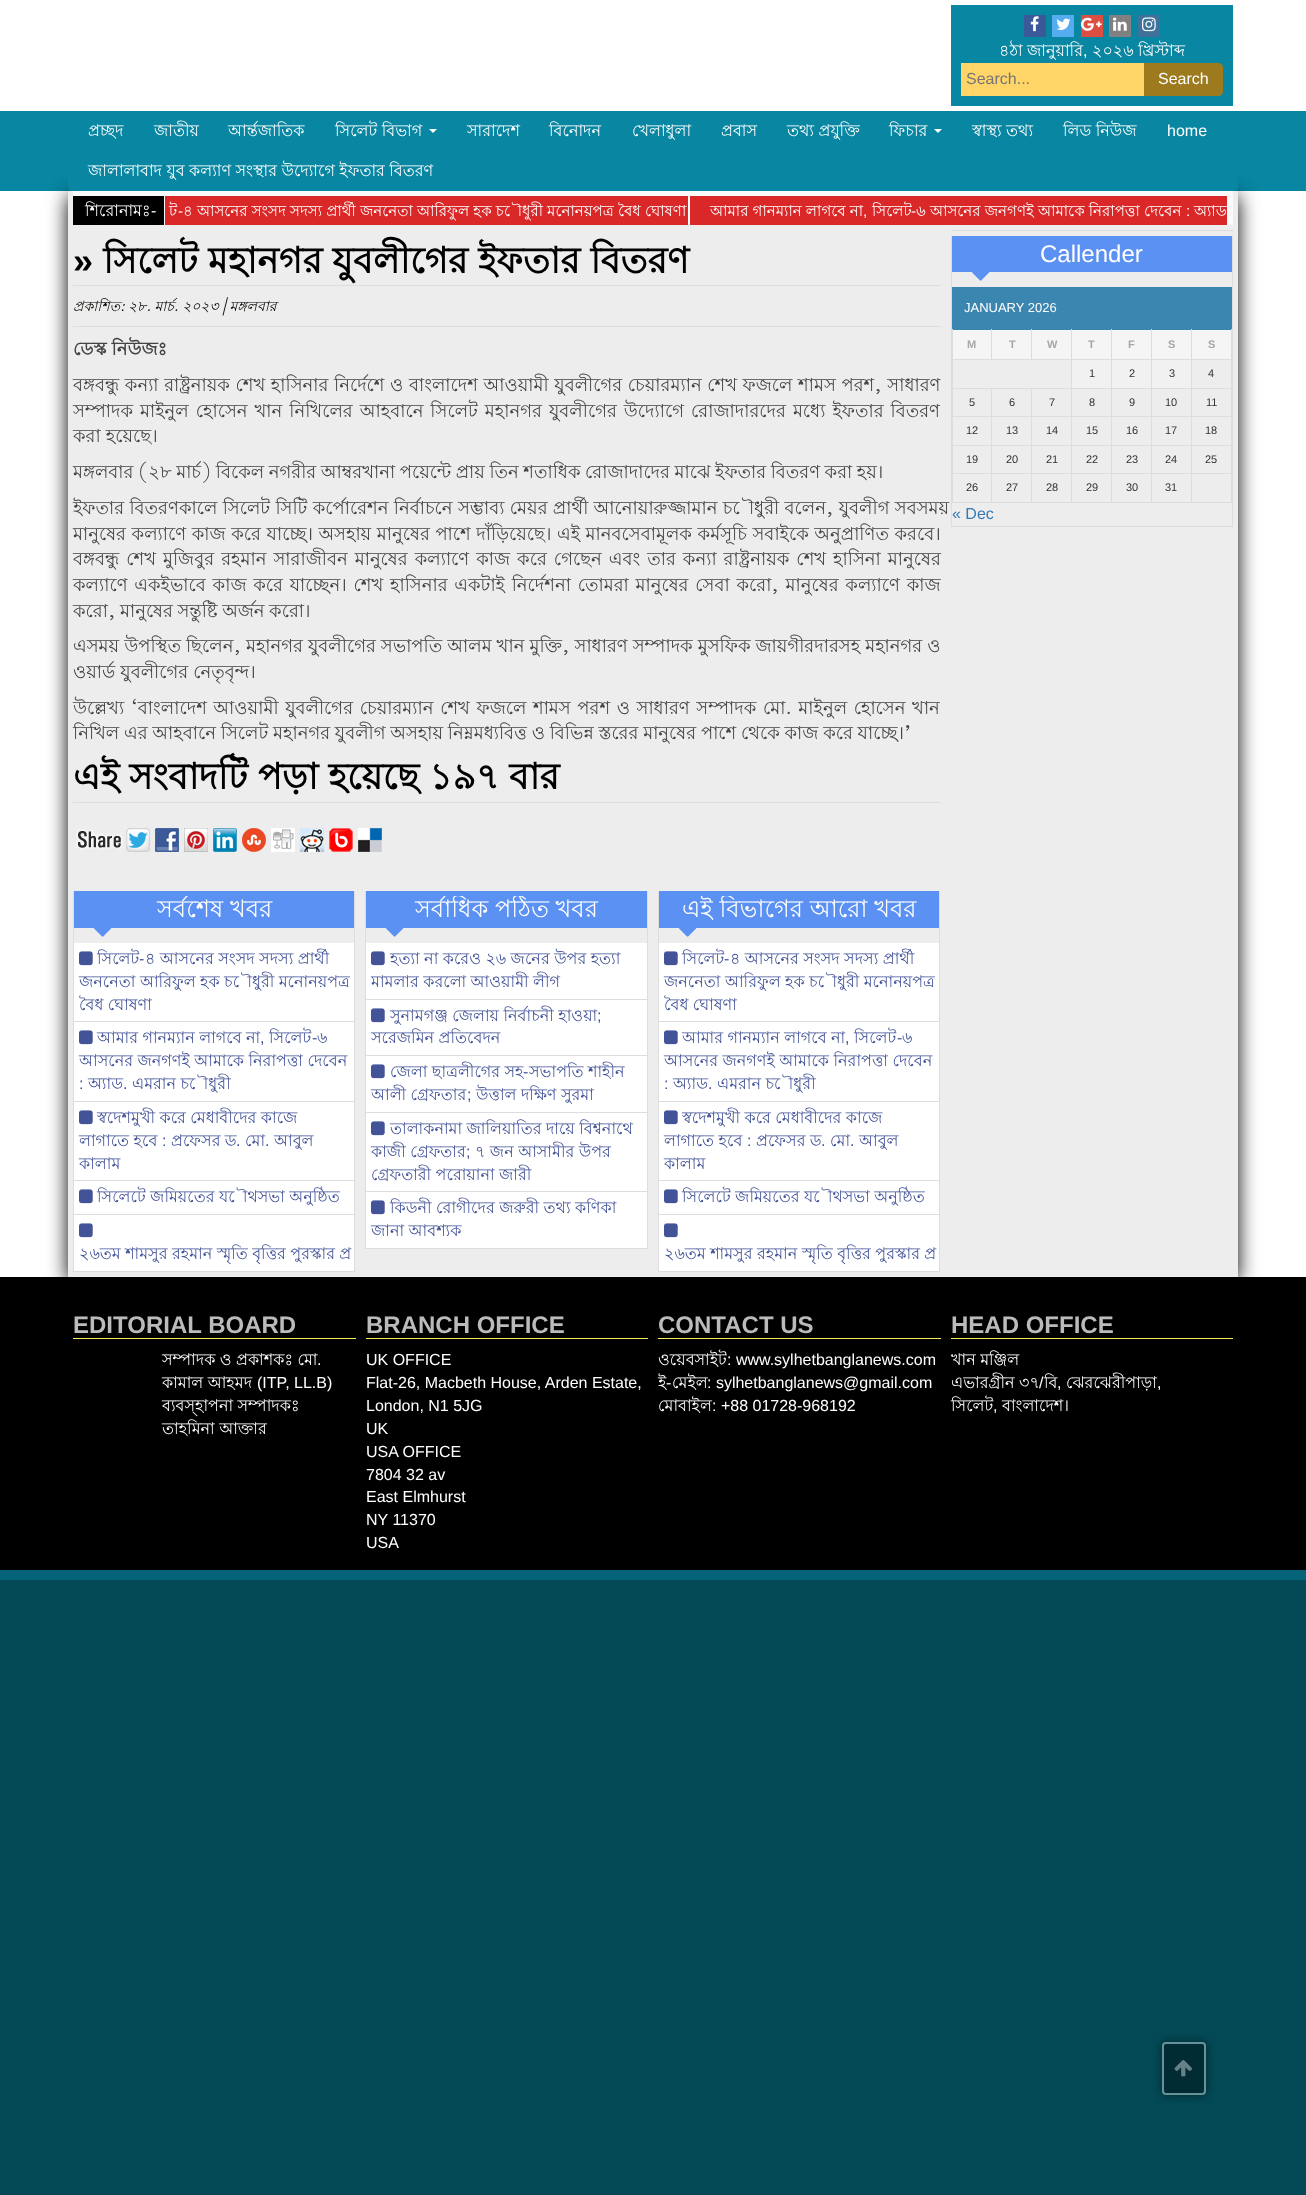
<svg xmlns="http://www.w3.org/2000/svg" xmlns:xlink="http://www.w3.org/1999/xlink" width="1306" height="2195" viewBox="0 0 1306 2195">
<style>
.cls-1{font:16px Lohit Bengali;fill:#ffffff}
.cls-2{font:16px Liberation Sans;fill:#ffffff}
.cls-3{font:16px Liberation Sans;fill:#757575}
.cls-4{font:15px Lohit Bengali;fill:#ffffff}
.cls-5{font:15px Liberation Sans;fill:#ffffff}
.cls-6{font:bold 36px Liberation Sans;fill:#000000}
.cls-7{font:bold 36px Lohit Bengali;fill:#000000}
.cls-8{font:italic 14px Lohit Bengali;fill:#060600}
.cls-9{font:bold 18px Lohit Bengali;fill:#444444}
.cls-10{font:18px Lohit Bengali;fill:#444444}
.cls-11{font:24px Lohit Bengali;fill:#ffffff}
.cls-12{font:16px Lohit Bengali;fill:#435398}
.cls-13{font:16px Liberation Sans;fill:#435398}
.cls-14{font:24px Liberation Sans;fill:#ffffff}
.cls-15{font:13px Liberation Sans;fill:#ffffff}
.cls-16{font:bold 11px Liberation Sans;fill:#a7a7a7}
.cls-17{font:11px Liberation Sans;fill:#333333}
.cls-18{font:16px Liberation Sans;fill:#337ab7}
.cls-19{font:bold 24px Liberation Sans;fill:#bbbbbb}
</style>
<defs>
<clipPath id="clip1"><rect x="79" y="896" width="270" height="27"/></clipPath>
<clipPath id="clip2"><rect x="371" y="896" width="271" height="27"/></clipPath>
<clipPath id="clip3"><rect x="664" y="896" width="270" height="27"/></clipPath>
</defs>
<rect width="100%" height="100%" fill="#034a56"/>
<rect fill="#ffffff" x="0" y="0" width="1306" height="111"/>
<rect fill="#0886a2" x="951" y="5" width="282" height="101"/>
<rect fill="#3b5998" x="1024" y="15" width="22" height="22"/>
<image xlink:href="image0.png" x="1030" y="16" width="9" height="16"/>
<rect fill="#55acee" x="1052" y="15" width="22" height="22"/>
<image xlink:href="image1.png" x="1056" y="18" width="15" height="12"/>
<rect fill="#dc4e41" x="1081" y="15" width="22" height="22"/>
<image xlink:href="image2.png" x="1081" y="17" width="21" height="14"/>
<rect fill="#808080" x="1109" y="15" width="22" height="22"/>
<image xlink:href="image3.png" x="1113" y="17" width="14" height="14"/>
<rect fill="#3f729b" x="1138" y="15" width="22" height="22"/>
<image xlink:href="image4.png" x="1142" y="17" width="14" height="15"/>
<rect fill="#ffd568" x="961" y="63" width="183" height="33"/>
<path fill="#9e7a1f" d="M1144 63H1218C1221 63 1223 65 1223 68V91C1223 94 1221 96 1218 96H1144Z"/>
<rect fill="#0886a2" x="0" y="111" width="1306" height="80"/>
<rect fill="#ffffff" x="0" y="191" width="1306" height="1086"/>
<rect fill="#000000" filter="blur(10px)" x="68" y="196" width="1170" height="1086"/>
<rect fill="#0886a2" x="68" y="111" width="1170" height="80" rx="4"/>
<path fill="#ffffff" d="M429 129H437L433 133Z"/>
<path fill="#ffffff" d="M934 129H942L938 133Z"/>
<rect fill="#ededed" x="68" y="191" width="1170" height="1086"/>
<rect fill="#fafafa" x="73" y="191" width="1160" height="34"/>
<rect fill="#000000" x="73" y="196" width="91" height="29"/>
<rect fill="#da2727" x="165" y="196" width="523" height="29"/>
<rect fill="#da2727" x="690" y="196" width="537" height="29"/>
<rect fill="#dddddd" x="73" y="285" width="868" height="1"/>
<rect fill="#dddddd" x="73" y="326" width="868" height="1"/>
<rect fill="#dddddd" x="73" y="802" width="868" height="1"/>
<image xlink:href="image5.png" x="76" y="829" width="47" height="21"/>
<image xlink:href="image6.png" x="126" y="828" width="24" height="24"/>
<image xlink:href="image7.png" x="155" y="828" width="24" height="24"/>
<image xlink:href="image8.png" x="184" y="828" width="24" height="24"/>
<image xlink:href="image9.png" x="213" y="828" width="24" height="24"/>
<image xlink:href="image10.png" x="242" y="828" width="24" height="24"/>
<image xlink:href="image11.png" x="271" y="828" width="24" height="24"/>
<image xlink:href="image12.png" x="300" y="828" width="24" height="24"/>
<image xlink:href="image13.png" x="329" y="828" width="24" height="24"/>
<image xlink:href="image14.png" x="358" y="828" width="24" height="24"/>
<rect fill="#dddddd" x="354" y="891" width="1" height="381"/>
<rect fill="#dddddd" x="73" y="1271" width="282" height="1"/>
<rect fill="#dddddd" x="73" y="891" width="1" height="381"/>
<rect fill="#5b91f2" x="74" y="891" width="280" height="37"/>
<image xlink:href="image15.png" x="94" y="928" width="18" height="9"/>
<rect fill="#ffffff" x="74" y="943" width="280" height="78"/>
<image xlink:href="image16.png" x="79" y="951" width="14" height="15"/>
<rect fill="#ffffff" x="74" y="1022" width="280" height="79"/>
<rect fill="#dddddd" x="74" y="1021" width="280" height="1"/>
<image xlink:href="image16.png" x="79" y="1030" width="14" height="15"/>
<rect fill="#ffffff" x="74" y="1102" width="280" height="78"/>
<rect fill="#dddddd" x="74" y="1101" width="280" height="1"/>
<image xlink:href="image16.png" x="79" y="1110" width="14" height="15"/>
<rect fill="#ffffff" x="74" y="1181" width="280" height="33"/>
<rect fill="#dddddd" x="74" y="1180" width="280" height="1"/>
<image xlink:href="image16.png" x="79" y="1189" width="14" height="15"/>
<rect fill="#ffffff" x="74" y="1215" width="280" height="56"/>
<rect fill="#dddddd" x="74" y="1214" width="280" height="1"/>
<image xlink:href="image16.png" x="79" y="1223" width="14" height="15"/>
<rect fill="#dddddd" x="647" y="891" width="1" height="358"/>
<rect fill="#dddddd" x="365" y="1248" width="283" height="1"/>
<rect fill="#dddddd" x="365" y="891" width="1" height="358"/>
<rect fill="#5b91f2" x="366" y="891" width="281" height="37"/>
<image xlink:href="image15.png" x="386" y="928" width="18" height="9"/>
<rect fill="#ffffff" x="366" y="943" width="281" height="56"/>
<image xlink:href="image16.png" x="371" y="951" width="14" height="15"/>
<rect fill="#ffffff" x="366" y="1000" width="281" height="55"/>
<rect fill="#dddddd" x="366" y="999" width="281" height="1"/>
<image xlink:href="image16.png" x="371" y="1008" width="14" height="15"/>
<rect fill="#ffffff" x="366" y="1056" width="281" height="56"/>
<rect fill="#dddddd" x="366" y="1055" width="281" height="1"/>
<image xlink:href="image16.png" x="371" y="1064" width="14" height="15"/>
<rect fill="#ffffff" x="366" y="1113" width="281" height="78"/>
<rect fill="#dddddd" x="366" y="1112" width="281" height="1"/>
<image xlink:href="image16.png" x="371" y="1121" width="14" height="15"/>
<rect fill="#ffffff" x="366" y="1192" width="281" height="56"/>
<rect fill="#dddddd" x="366" y="1191" width="281" height="1"/>
<image xlink:href="image16.png" x="371" y="1200" width="14" height="15"/>
<rect fill="#dddddd" x="939" y="891" width="1" height="381"/>
<rect fill="#dddddd" x="658" y="1271" width="282" height="1"/>
<rect fill="#dddddd" x="658" y="891" width="1" height="381"/>
<rect fill="#5b91f2" x="659" y="891" width="280" height="37"/>
<image xlink:href="image15.png" x="679" y="928" width="18" height="9"/>
<rect fill="#ffffff" x="659" y="943" width="280" height="78"/>
<image xlink:href="image16.png" x="664" y="951" width="14" height="15"/>
<rect fill="#ffffff" x="659" y="1022" width="280" height="79"/>
<rect fill="#dddddd" x="659" y="1021" width="280" height="1"/>
<image xlink:href="image16.png" x="664" y="1030" width="14" height="15"/>
<rect fill="#ffffff" x="659" y="1102" width="280" height="78"/>
<rect fill="#dddddd" x="659" y="1101" width="280" height="1"/>
<image xlink:href="image16.png" x="664" y="1110" width="14" height="15"/>
<rect fill="#ffffff" x="659" y="1181" width="280" height="33"/>
<rect fill="#dddddd" x="659" y="1180" width="280" height="1"/>
<image xlink:href="image16.png" x="664" y="1189" width="14" height="15"/>
<rect fill="#ffffff" x="659" y="1215" width="280" height="56"/>
<rect fill="#dddddd" x="659" y="1214" width="280" height="1"/>
<image xlink:href="image16.png" x="664" y="1223" width="14" height="15"/>
<rect fill="#dddddd" x="951" y="230" width="282" height="1"/>
<rect fill="#dddddd" x="1232" y="236" width="1" height="291"/>
<rect fill="#dddddd" x="951" y="526" width="282" height="1"/>
<rect fill="#dddddd" x="951" y="236" width="1" height="291"/>
<rect fill="#5b91f2" x="952" y="236" width="280" height="36"/>
<image xlink:href="image15.png" x="972" y="272" width="18" height="9"/>
<rect fill="#3b86b0" x="952" y="287" width="280" height="43"/>
<rect fill="#f5f5f5" x="953" y="330" width="38" height="29"/>
<rect fill="#f5f5f5" x="992" y="330" width="39" height="29"/>
<rect fill="#dddddd" x="1191" y="359" width="41" height="1"/>
<rect fill="#dddddd" x="1191" y="388" width="41" height="1"/>
<rect fill="#dddddd" x="1191" y="416" width="41" height="1"/>
<rect fill="#dddddd" x="1191" y="445" width="41" height="1"/>
<rect fill="#dddddd" x="1191" y="473" width="41" height="1"/>
<rect fill="#dddddd" x="1231" y="473" width="1" height="30"/>
<rect fill="#dddddd" x="1191" y="502" width="41" height="1"/>
<rect fill="#dddddd" x="1191" y="473" width="1" height="30"/>
<rect fill="#dddddd" x="1151" y="473" width="41" height="1"/>
<rect fill="#dddddd" x="1191" y="445" width="1" height="29"/>
<rect fill="#dddddd" x="1151" y="445" width="41" height="1"/>
<rect fill="#dddddd" x="1191" y="416" width="1" height="30"/>
<rect fill="#dddddd" x="1151" y="416" width="41" height="1"/>
<rect fill="#dddddd" x="1191" y="388" width="1" height="29"/>
<rect fill="#dddddd" x="1151" y="388" width="41" height="1"/>
<rect fill="#dddddd" x="1191" y="359" width="1" height="30"/>
<rect fill="#dddddd" x="1151" y="359" width="41" height="1"/>
<rect fill="#dddddd" x="1151" y="502" width="41" height="1"/>
<rect fill="#dddddd" x="1151" y="473" width="1" height="30"/>
<rect fill="#dddddd" x="1111" y="473" width="41" height="1"/>
<rect fill="#dddddd" x="1151" y="445" width="1" height="29"/>
<rect fill="#dddddd" x="1111" y="445" width="41" height="1"/>
<rect fill="#dddddd" x="1151" y="416" width="1" height="30"/>
<rect fill="#dddddd" x="1111" y="416" width="41" height="1"/>
<rect fill="#dddddd" x="1151" y="388" width="1" height="29"/>
<rect fill="#dddddd" x="1111" y="388" width="41" height="1"/>
<rect fill="#dddddd" x="1151" y="359" width="1" height="30"/>
<rect fill="#dddddd" x="1111" y="359" width="41" height="1"/>
<rect fill="#dddddd" x="1111" y="502" width="41" height="1"/>
<rect fill="#dddddd" x="1111" y="473" width="1" height="30"/>
<rect fill="#dddddd" x="1071" y="473" width="41" height="1"/>
<rect fill="#dddddd" x="1111" y="445" width="1" height="29"/>
<rect fill="#dddddd" x="1071" y="445" width="41" height="1"/>
<rect fill="#dddddd" x="1111" y="416" width="1" height="30"/>
<rect fill="#dddddd" x="1071" y="416" width="41" height="1"/>
<rect fill="#dddddd" x="1111" y="388" width="1" height="29"/>
<rect fill="#dddddd" x="1071" y="388" width="41" height="1"/>
<rect fill="#dddddd" x="1111" y="359" width="1" height="30"/>
<rect fill="#dddddd" x="1071" y="359" width="41" height="1"/>
<rect fill="#dddddd" x="1071" y="502" width="41" height="1"/>
<rect fill="#dddddd" x="1071" y="473" width="1" height="30"/>
<rect fill="#dddddd" x="1031" y="473" width="41" height="1"/>
<rect fill="#dddddd" x="1071" y="445" width="1" height="29"/>
<rect fill="#dddddd" x="1031" y="445" width="41" height="1"/>
<rect fill="#dddddd" x="1071" y="416" width="1" height="30"/>
<rect fill="#dddddd" x="1031" y="416" width="41" height="1"/>
<rect fill="#dddddd" x="1071" y="388" width="1" height="29"/>
<rect fill="#dddddd" x="1031" y="388" width="41" height="1"/>
<rect fill="#dddddd" x="1071" y="359" width="1" height="30"/>
<rect fill="#dddddd" x="952" y="359" width="120" height="1"/>
<rect fill="#dddddd" x="991" y="329" width="1" height="31"/>
<rect fill="#f5f5f5" x="1032" y="330" width="39" height="29"/>
<rect fill="#dddddd" x="1031" y="329" width="1" height="31"/>
<rect fill="#f5f5f5" x="1072" y="330" width="39" height="29"/>
<rect fill="#dddddd" x="1071" y="329" width="1" height="31"/>
<rect fill="#f5f5f5" x="1112" y="330" width="39" height="29"/>
<rect fill="#dddddd" x="1111" y="329" width="1" height="31"/>
<rect fill="#f5f5f5" x="1152" y="330" width="39" height="29"/>
<rect fill="#dddddd" x="1151" y="329" width="1" height="31"/>
<rect fill="#f5f5f5" x="1192" y="330" width="39" height="29"/>
<rect fill="#dddddd" x="1191" y="329" width="1" height="31"/>
<rect fill="#dddddd" x="1031" y="502" width="41" height="1"/>
<rect fill="#dddddd" x="1031" y="473" width="1" height="30"/>
<rect fill="#dddddd" x="991" y="473" width="41" height="1"/>
<rect fill="#dddddd" x="1031" y="445" width="1" height="29"/>
<rect fill="#dddddd" x="991" y="445" width="41" height="1"/>
<rect fill="#dddddd" x="1031" y="416" width="1" height="30"/>
<rect fill="#dddddd" x="991" y="416" width="41" height="1"/>
<rect fill="#dddddd" x="1031" y="388" width="1" height="29"/>
<rect fill="#dddddd" x="991" y="388" width="41" height="1"/>
<rect fill="#dddddd" x="991" y="502" width="41" height="1"/>
<rect fill="#dddddd" x="991" y="473" width="1" height="30"/>
<rect fill="#dddddd" x="952" y="473" width="40" height="1"/>
<rect fill="#dddddd" x="991" y="445" width="1" height="29"/>
<rect fill="#dddddd" x="952" y="445" width="40" height="1"/>
<rect fill="#dddddd" x="991" y="416" width="1" height="30"/>
<rect fill="#dddddd" x="952" y="416" width="40" height="1"/>
<rect fill="#dddddd" x="991" y="388" width="1" height="29"/>
<rect fill="#dddddd" x="952" y="388" width="40" height="1"/>
<rect fill="#dddddd" x="952" y="502" width="40" height="1"/>
<rect fill="#dddddd" x="952" y="473" width="1" height="30"/>
<rect fill="#dddddd" x="952" y="445" width="1" height="29"/>
<rect fill="#dddddd" x="952" y="416" width="1" height="30"/>
<rect fill="#dddddd" x="952" y="388" width="1" height="29"/>
<rect fill="#dddddd" x="952" y="329" width="1" height="60"/>
<rect fill="#f1f1f1" x="1072" y="360" width="39" height="28"/>
<rect fill="#f1f1f1" x="1112" y="360" width="39" height="28"/>
<rect fill="#f1f1f1" x="1152" y="360" width="39" height="28"/>
<rect fill="#dddddd" x="1231" y="445" width="1" height="29"/>
<rect fill="#dddddd" x="1231" y="416" width="1" height="30"/>
<rect fill="#dddddd" x="1231" y="388" width="1" height="29"/>
<rect fill="#dddddd" x="1231" y="329" width="1" height="60"/>
<rect fill="#000000" x="0" y="1277" width="1306" height="293"/>
<rect fill="#f6ef5c" x="73" y="1338" width="283" height="1"/>
<rect fill="#f6ef5c" x="366" y="1338" width="282" height="1"/>
<rect fill="#f6ef5c" x="658" y="1338" width="283" height="1"/>
<rect fill="#f6ef5c" x="951" y="1338" width="282" height="1"/>
<rect fill="#046378" x="0" y="1570" width="1306" height="10"/>
<rect fill="#022c34" filter="blur(4.5px)" x="1161" y="2041" width="46" height="55" rx="5"/>
<rect fill="#022c34" stroke="#68929a" stroke-width="2" x="1163" y="2043" width="42" height="51" rx="3"/>
<image xlink:href="image17.png" x="1174" y="2060" width="18" height="17"/>
<text class="cls-1" x="999" y="56">৪ঠা জানুয়ারি</text>
<text class="cls-2" x="1083" y="56">,</text>
<text class="cls-1" x="1092" y="56">২০২৬ খ্রিস্টাব্দ</text>
<text class="cls-3" x="966" y="84">Search...</text>
<text class="cls-2" x="1158" y="84">Search</text>
<text class="cls-1" x="88" y="136">প্রচ্ছদ</text>
<text class="cls-1" x="154" y="136">জাতীয়</text>
<text class="cls-1" x="228" y="136">আর্ন্তজাতিক</text>
<text class="cls-1" x="335" y="136">সিলেট বিভাগ</text>
<text class="cls-1" x="467" y="136">সারাদেশ</text>
<text class="cls-1" x="549" y="136">বিনোদন</text>
<text class="cls-1" x="632" y="136">খেলাধুলা</text>
<text class="cls-1" x="721" y="136">প্রবাস</text>
<text class="cls-1" x="787" y="136">তথ্য প্রযুক্তি</text>
<text class="cls-1" x="889" y="136">ফিচার</text>
<text class="cls-1" x="972" y="136">স্বাস্থ্য তথ্য</text>
<text class="cls-1" x="1063" y="136">লিড নিউজ</text>
<text class="cls-2" x="1167" y="136">home</text>
<text class="cls-1" x="88" y="176">জালালাবাদ যুব কল্যাণ সংস্থার উদ্যোগে ইফতার বিতরণ</text>
<text class="cls-1" x="85" y="216">শিরোনামঃ</text>
<text class="cls-2" x="151" y="216">-</text>
<text class="cls-4" x="169" y="216">ট</text>
<text class="cls-5" x="178" y="216">-</text>
<text class="cls-4" x="183" y="216">৪ আসনের সংসদ সদস্য প্রার্থী জননেতা আরিফুল হক চৌধুরী মনোনয়পত্র বৈধ ঘোষণা</text>
<text class="cls-4" x="710" y="216">আমার গানম্যান লাগবে না</text>
<text class="cls-4" x="872" y="216">সিলেট</text>
<text class="cls-5" x="911" y="216">-</text>
<text class="cls-4" x="916" y="216">৬ আসনের জনগণই আমাকে নিরাপত্তা দেবেন</text>
<text class="cls-5" x="1186" y="216">:</text>
<text class="cls-4" x="1194" y="216">অ্যাড</text>
<text class="cls-5" x="863" y="216">,</text>
<text class="cls-6" x="73" y="273">»</text>
<text class="cls-7" x="103" y="273">সিলেট মহানগর যুবলীগের ইফতার বিতরণ</text>
<text class="cls-8" x="73" y="311">প্রকাশিত:</text>
<text class="cls-8" x="128" y="311" word-spacing="-0.5">২৮. মার্চ. ২০২৩ | মঙ্গলবার</text>
<text class="cls-9" x="73" y="355">ডেস্ক নিউজঃ</text>
<text class="cls-10"><tspan x="73" y="391" word-spacing="0.6">বঙ্গবন্ধু কন্যা রাষ্ট্রনায়ক শেখ হাসিনার নির্দেশে ও বাংলাদেশ আওয়ামী যুবলীগের চেয়ারম্যান শেখ ফজলে শামস পরশ, সাধারণ</tspan><tspan x="73" y="417" word-spacing="2">সম্পাদক মাইনুল হোসেন খান নিখিলের আহবানে সিলেট মহানগর যুবলীগের উদ্যোগে রোজাদারদের মধ্যে ইফতার বিতরণ</tspan><tspan x="73" y="442">করা হয়েছে।</tspan></text>
<text class="cls-10" x="73" y="478" word-spacing="-0.5">মঙ্গলবার (২৮ মার্চ) বিকেল নগরীর আম্বরখানা পয়েন্টে প্রায় তিন শতাধিক রোজাদাদের মাঝে ইফতার বিতরণ করা হয়।</text>
<text class="cls-10"><tspan x="73" y="514" word-spacing="0.3">ইফতার বিতরণকালে সিলেট সিটি কর্পোরেশন নির্বাচনে সম্ভাব্য মেয়র প্রার্থী আনোয়ারুজ্জামান চৌধুরী বলেন, যুবলীগ সবসময়</tspan><tspan x="73" y="540" word-spacing="0.6">মানুষের কল্যাণে কাজ করে যাচ্ছে। অসহায় মানুষের পাশে দাঁড়িয়েছে। এই মানবসেবামূলক কর্মসূচি সবাইকে অনুপ্রাণিত করবে।</tspan><tspan x="73" y="565" word-spacing="2">বঙ্গবন্ধু শেখ মুজিবুর রহমান সারাজীবন মানুষের কল্যাণে কাজ করে গেছেন এবং তার কন্যা রাষ্ট্রনায়ক শেখ হাসিনা মানুষের</tspan><tspan x="73" y="591" word-spacing="1.75">কল্যাণে একইভাবে কাজ করে যাচ্ছেন। শেখ হাসিনার একটাই নির্দেশনা তোমরা মানুষের সেবা করো, মানুষের কল্যাণে কাজ</tspan><tspan x="73" y="617" word-spacing="-0.5">করো, মানুষের সন্তুষ্টি অর্জন করো।</tspan><tspan x="73" y="652">এসময় উপস্থিত ছিলেন, মহানগর যুবলীগের সভাপতি আলম খান মুক্তি, সাধারণ সম্পাদক মুসফিক জায়গীরদারসহ মহানগর ও</tspan><tspan x="73" y="678">ওয়ার্ড যুবলীগের নেতৃবৃন্দ।</tspan></text>
<text class="cls-10"><tspan x="73" y="714" word-spacing="1.6">উল্লেখ্য ‘বাংলাদেশ আওয়ামী যুবলীগের চেয়ারম্যান শেখ ফজলে শামস পরশ ও সাধারণ সম্পাদক মো. মাইনুল হোসেন খান</tspan><tspan x="73" y="739" word-spacing="-0.25">নিখিল এর আহবানে সিলেট মহানগর যুবলীগ অসহায় নিম্নমধ্যবিত্ত ও বিভিন্ন স্তরের মানুষের পাশে থেকে কাজ করে যাচ্ছে।’</tspan></text>
<text class="cls-7" x="73" y="789">এই সংবাদটি পড়া হয়েছে ১৯৭ বার</text>
<g clip-path="url(#clip1)">
<text class="cls-11" x="157" y="917">সর্বশেষ খবর</text>
</g>
<text class="cls-12" x="97" y="964">সিলেট</text>
<text class="cls-13" x="139" y="964">-</text>
<text class="cls-12" x="145" y="964">৪ আসনের সংসদ সদস্য প্রার্থী</text>
<text class="cls-12"><tspan x="79" y="987">জননেতা আরিফুল হক চৌধুরী মনোনয়পত্র</tspan><tspan x="79" y="1010">বৈধ ঘোষণা</tspan></text>
<text class="cls-12" x="97" y="1043">আমার গানম্যান লাগবে না</text>
<text class="cls-12" x="269" y="1043">সিলেট</text>
<text class="cls-13" x="312" y="1043">-</text>
<text class="cls-12" x="317" y="1043">৬</text>
<text class="cls-13" x="260" y="1043">,</text>
<text class="cls-12" x="79" y="1066">আসনের জনগণই আমাকে নিরাপত্তা দেবেন</text>
<text class="cls-13" x="79" y="1089">:</text>
<text class="cls-12" x="88" y="1089">অ্যাড</text>
<text class="cls-13" x="123" y="1089">.</text>
<text class="cls-12" x="132" y="1089">এমরান চৌধুরী</text>
<text class="cls-12" x="97" y="1123">স্বদেশমুখী করে মেধাবীদের কাজে</text>
<text class="cls-12" x="79" y="1146">লাগাতে হবে</text>
<text class="cls-13" x="162" y="1146">:</text>
<text class="cls-12" x="171" y="1146">প্রফেসর ড</text>
<text class="cls-13" x="236" y="1146">.</text>
<text class="cls-12" x="245" y="1146">মো</text>
<text class="cls-13" x="265" y="1146">.</text>
<text class="cls-12" x="274" y="1146">আবুল</text>
<text class="cls-12" x="79" y="1169">কালাম</text>
<text class="cls-12" x="97" y="1202">সিলেটে জমিয়তের যৌথসভা অনুষ্ঠিত</text>
<text class="cls-12" x="79" y="1259">২৬তম শামসুর রহমান স্মৃতি বৃত্তির পুরস্কার প্র</text>
<g clip-path="url(#clip2)">
<text class="cls-11" x="415" y="917">সর্বাধিক পঠিত খবর</text>
</g>
<text class="cls-12" x="390" y="964">হত্যা না করেও ২৬ জনের উপর হত্যা</text>
<text class="cls-12" x="371" y="987">মামলার করলো আওয়ামী লীগ</text>
<text class="cls-12" x="390" y="1021">সুনামগঞ্জ জেলায় নির্বাচনী হাওয়া</text>
<text class="cls-13" x="597" y="1021">;</text>
<text class="cls-12" x="371" y="1043">সরেজমিন প্রতিবেদন</text>
<text class="cls-12" x="390" y="1077">জেলা ছাত্রলীগের সহ</text>
<text class="cls-13" x="523" y="1077">-</text>
<text class="cls-12" x="529" y="1077">সভাপতি শাহীন</text>
<text class="cls-12" x="371" y="1100">আলী গ্রেফতার</text>
<text class="cls-13" x="467" y="1100">;</text>
<text class="cls-12" x="476" y="1100">উত্তাল দক্ষিণ সুরমা</text>
<text class="cls-12" x="390" y="1134">তালাকনামা জালিয়াতির দায়ে বিশ্বনাথে</text>
<text class="cls-12" x="371" y="1157">কাজী গ্রেফতার</text>
<text class="cls-13" x="466" y="1157">;</text>
<text class="cls-12" x="475" y="1157">৭ জন আসামীর উপর</text>
<text class="cls-12" x="371" y="1180">গ্রেফতারী পরোয়ানা জারী</text>
<text class="cls-12" x="390" y="1213">কিডনী রোগীদের জরুরী তথ্য কণিকা</text>
<text class="cls-12" x="371" y="1236">জানা আবশ্যক</text>
<g clip-path="url(#clip3)">
<text class="cls-11" x="682" y="917">এই বিভাগের আরো খবর</text>
</g>
<text class="cls-12" x="682" y="964">সিলেট</text>
<text class="cls-13" x="724" y="964">-</text>
<text class="cls-12" x="730" y="964">৪ আসনের সংসদ সদস্য প্রার্থী</text>
<text class="cls-12"><tspan x="664" y="987">জননেতা আরিফুল হক চৌধুরী মনোনয়পত্র</tspan><tspan x="664" y="1010">বৈধ ঘোষণা</tspan></text>
<text class="cls-12" x="682" y="1043">আমার গানম্যান লাগবে না</text>
<text class="cls-12" x="854" y="1043">সিলেট</text>
<text class="cls-13" x="897" y="1043">-</text>
<text class="cls-12" x="902" y="1043">৬</text>
<text class="cls-13" x="845" y="1043">,</text>
<text class="cls-12" x="664" y="1066">আসনের জনগণই আমাকে নিরাপত্তা দেবেন</text>
<text class="cls-13" x="664" y="1089">:</text>
<text class="cls-12" x="673" y="1089">অ্যাড</text>
<text class="cls-13" x="708" y="1089">.</text>
<text class="cls-12" x="717" y="1089">এমরান চৌধুরী</text>
<text class="cls-12" x="682" y="1123">স্বদেশমুখী করে মেধাবীদের কাজে</text>
<text class="cls-12" x="664" y="1146">লাগাতে হবে</text>
<text class="cls-13" x="747" y="1146">:</text>
<text class="cls-12" x="756" y="1146">প্রফেসর ড</text>
<text class="cls-13" x="821" y="1146">.</text>
<text class="cls-12" x="830" y="1146">মো</text>
<text class="cls-13" x="850" y="1146">.</text>
<text class="cls-12" x="859" y="1146">আবুল</text>
<text class="cls-12" x="664" y="1169">কালাম</text>
<text class="cls-12" x="682" y="1202">সিলেটে জমিয়তের যৌথসভা অনুষ্ঠিত</text>
<text class="cls-12" x="664" y="1259">২৬তম শামসুর রহমান স্মৃতি বৃত্তির পুরস্কার প্র</text>
<text class="cls-14" x="1040" y="262">Callender</text>
<text class="cls-15" x="964" y="312">JANUARY 2026</text>
<text class="cls-16" x="967" y="348">M</text>
<text class="cls-16" x="1009" y="348">T</text>
<text class="cls-16" x="1047" y="348">W</text>
<text class="cls-16" x="1088" y="348">T</text>
<text class="cls-16" x="1128" y="348">F</text>
<text class="cls-16" x="1168" y="348">S</text>
<text class="cls-16" x="1208" y="348">S</text>
<text class="cls-17" x="1089" y="377">1</text>
<text class="cls-17" x="1129" y="377">2</text>
<text class="cls-17" x="1169" y="377">3</text>
<text class="cls-17" x="1208" y="377">4</text>
<text class="cls-17" x="969" y="406">5</text>
<text class="cls-17" x="1009" y="406">6</text>
<text class="cls-17" x="1049" y="406">7</text>
<text class="cls-17" x="1089" y="406">8</text>
<text class="cls-17" x="1129" y="406">9</text>
<text class="cls-17" x="1165" y="406">10</text>
<text class="cls-17" x="1206" y="406">11</text>
<text class="cls-17" x="966" y="434">12</text>
<text class="cls-17" x="1006" y="434">13</text>
<text class="cls-17" x="1046" y="434">14</text>
<text class="cls-17" x="1086" y="434">15</text>
<text class="cls-17" x="1126" y="434">16</text>
<text class="cls-17" x="1165" y="434">17</text>
<text class="cls-17" x="1205" y="434">18</text>
<text class="cls-17" x="966" y="463">19</text>
<text class="cls-17" x="1006" y="463">20</text>
<text class="cls-17" x="1046" y="463">21</text>
<text class="cls-17" x="1086" y="463">22</text>
<text class="cls-17" x="1126" y="463">23</text>
<text class="cls-17" x="1165" y="463">24</text>
<text class="cls-17" x="1205" y="463">25</text>
<text class="cls-17" x="966" y="491">26</text>
<text class="cls-17" x="1006" y="491">27</text>
<text class="cls-17" x="1046" y="491">28</text>
<text class="cls-17" x="1086" y="491">29</text>
<text class="cls-17" x="1126" y="491">30</text>
<text class="cls-17" x="1165" y="491">31</text>
<text class="cls-18" x="952" y="519">« Dec</text>
<text class="cls-19" x="73" y="1333">EDITORIAL BOARD</text>
<text class="cls-1" x="162" y="1365">সম্পাদক ও প্রকাশকঃ মো</text>
<text class="cls-2" x="317" y="1365">.</text>
<text class="cls-1" x="162" y="1388">কামাল আহমদ</text>
<text class="cls-2" x="257" y="1388">(ITP, LL.B)</text>
<text class="cls-1"><tspan x="162" y="1411">ব্যবস্হাপনা সম্পাদকঃ</tspan><tspan x="162" y="1434">তাহমিনা আক্তার</tspan></text>
<text class="cls-19" x="366" y="1333">BRANCH OFFICE</text>
<text class="cls-2"><tspan x="366" y="1365">UK OFFICE</tspan><tspan x="366" y="1388">Flat-26, Macbeth House, Arden Estate,</tspan><tspan x="366" y="1411">London, N1 5JG</tspan><tspan x="366" y="1434">UK</tspan><tspan x="366" y="1457">USA OFFICE</tspan><tspan x="366" y="1480">7804 32 av</tspan><tspan x="366" y="1502">East Elmhurst</tspan><tspan x="366" y="1525">NY 11370</tspan><tspan x="366" y="1548">USA</tspan></text>
<text class="cls-19" x="658" y="1333">CONTACT US</text>
<text class="cls-1" x="658" y="1365">ওয়েবসাইট</text>
<text class="cls-2" x="727" y="1365">: www.sylhetbanglanews.com</text>
<text class="cls-1" x="658" y="1388">ই</text>
<text class="cls-2" x="666" y="1388">-</text>
<text class="cls-1" x="672" y="1388">মেইল</text>
<text class="cls-2" x="707" y="1388">: sylhetbanglanews@gmail.com</text>
<text class="cls-1" x="658" y="1411">মোবাইল</text>
<text class="cls-2" x="712" y="1411">: +88 01728-968192</text>
<text class="cls-19" x="951" y="1333">HEAD OFFICE</text>
<text class="cls-1"><tspan x="951" y="1365">খান মঞ্জিল</tspan><tspan x="951" y="1388">এভারগ্রীন ৩৭</tspan></text>
<text class="cls-2" x="1039" y="1388">/</text>
<text class="cls-1" x="1044" y="1388">বি</text>
<text class="cls-2" x="1057" y="1388">,</text>
<text class="cls-1" x="1066" y="1388">ঝেরঝেরীপাড়া</text>
<text class="cls-2" x="1157" y="1388">,</text>
<text class="cls-1" x="951" y="1411">সিলেট</text>
<text class="cls-2" x="993" y="1411">,</text>
<text class="cls-1" x="1002" y="1411">বাংলাদেশ।</text>
</svg>
